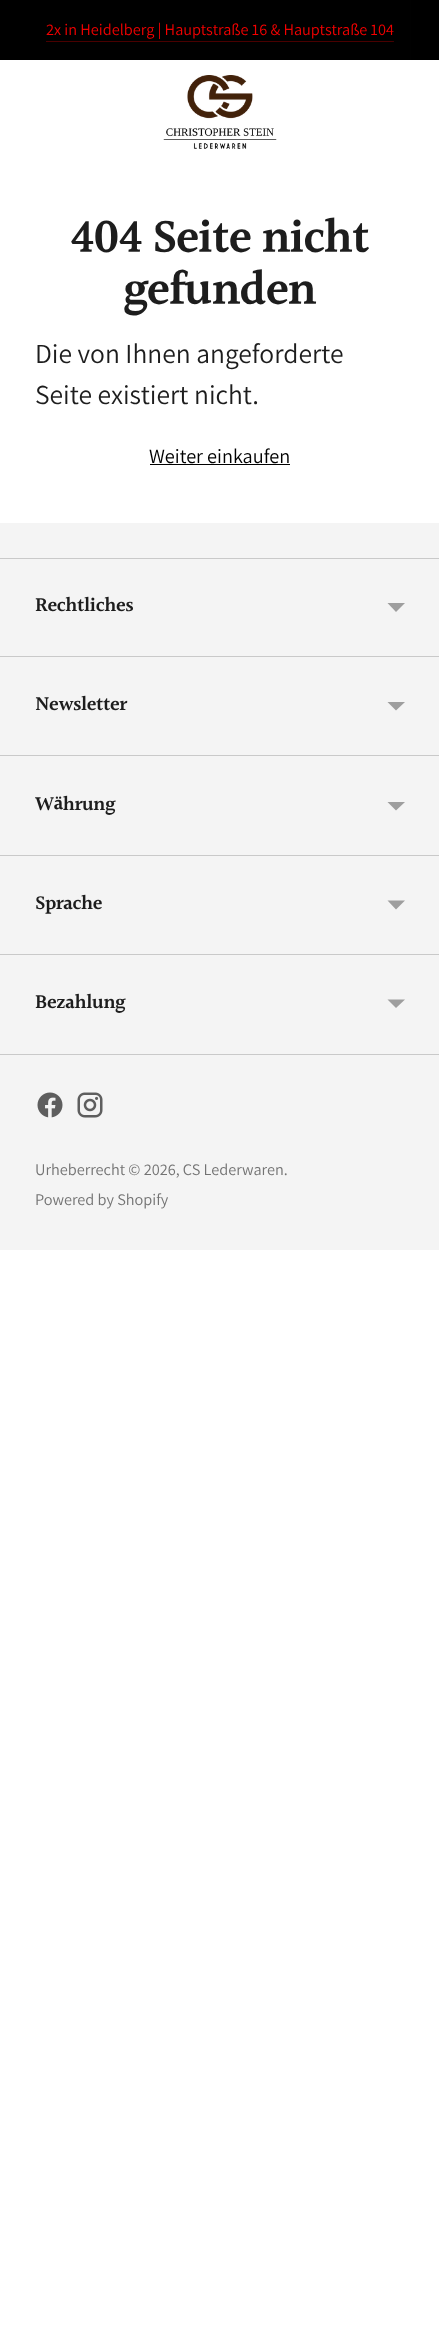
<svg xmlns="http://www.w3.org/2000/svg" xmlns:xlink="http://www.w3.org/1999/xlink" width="439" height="2339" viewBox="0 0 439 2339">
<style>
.cls-1{font:16.25px Assistant;fill:#f50000}
.cls-2{font:600 48px Halant;letter-spacing:-1.25px;fill:#1d1d1d}
.cls-3{font:27.5px Assistant;fill:#1d1d1d}
.cls-4{font:20.25px Assistant;fill:#000000}
.cls-5{font:600 20px Halant;letter-spacing:-0.5px;fill:#1d1d1d}
.cls-6{font:16.25px Assistant;fill:#737373}
</style>
<defs>
<linearGradient id="g1" gradientUnits="userSpaceOnUse" x1="391" y1="30" x2="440" y2="30"><stop offset="0" stop-color="#000000" stop-opacity="0"/><stop offset="0.4" stop-color="#000000"/></linearGradient>
</defs>
<rect width="100%" height="100%" fill="#ffffff"/>
<rect fill="#000000" x="0" y="0" width="410" height="60"/>
<rect fill="#4a0000" x="46" y="41" width="348" height="1"/>
<image xlink:href="image0.png" x="163" y="75" width="114" height="74"/>
<rect fill="#000000" x="150" y="464" width="140" height="1"/>
<rect fill="#f4f4f4" x="0" y="523" width="439" height="727"/>
<rect fill="#c9c9c9" x="0" y="558" width="439" height="1"/>
<rect fill="#c9c9c9" x="0" y="656" width="439" height="1"/>
<path fill="#9e9e9e" d="M387.5 603L396 612L405 603Z"/>
<rect fill="#c9c9c9" x="0" y="755" width="439" height="1"/>
<path fill="#9e9e9e" d="M387.5 702L396 710.5L405 702Z"/>
<rect fill="#c9c9c9" x="0" y="855" width="439" height="1"/>
<path fill="#9e9e9e" d="M387.5 802L396 810.5L405 802Z"/>
<rect fill="#c9c9c9" x="0" y="954" width="439" height="1"/>
<path fill="#9e9e9e" d="M387.5 900.5L396 909.5L405 900.5Z"/>
<rect fill="#c9c9c9" x="0" y="1054" width="439" height="1"/>
<path fill="#9e9e9e" d="M387.5 999.5L396 1008L405 999.5Z"/>
<image xlink:href="image1.png" x="37" y="1092" width="26" height="26"/>
<image xlink:href="image2.png" x="77" y="1092" width="26" height="26"/>
<text class="cls-1" x="46" y="35">2x in Heidelberg | Hauptstraße 16 &amp; Hauptstraße 104</text>
<rect fill="url(#g1)" x="391" y="0" width="48" height="60"/>
<text class="cls-2" x="70" y="254">404 Seite nicht</text>
<text class="cls-2" x="123" y="306">gefunden</text>
<text class="cls-3"><tspan x="35" y="363">Die von Ihnen angeforderte</tspan><tspan x="35" y="404">Seite existiert nicht.</tspan></text>
<text class="cls-4" x="149" y="463">Weiter einkaufen</text>
<text class="cls-5" x="35" y="612">Rechtliches</text>
<text class="cls-5" x="35" y="711">Newsletter</text>
<text class="cls-5" x="35" y="811">Währung</text>
<text class="cls-5" x="35" y="910">Sprache</text>
<text class="cls-5" x="35" y="1009">Bezahlung</text>
<text class="cls-6"><tspan x="35" y="1175">Urheberrecht © 2026, CS Lederwaren.</tspan><tspan x="35" y="1205">Powered by Shopify</tspan></text>
</svg>
